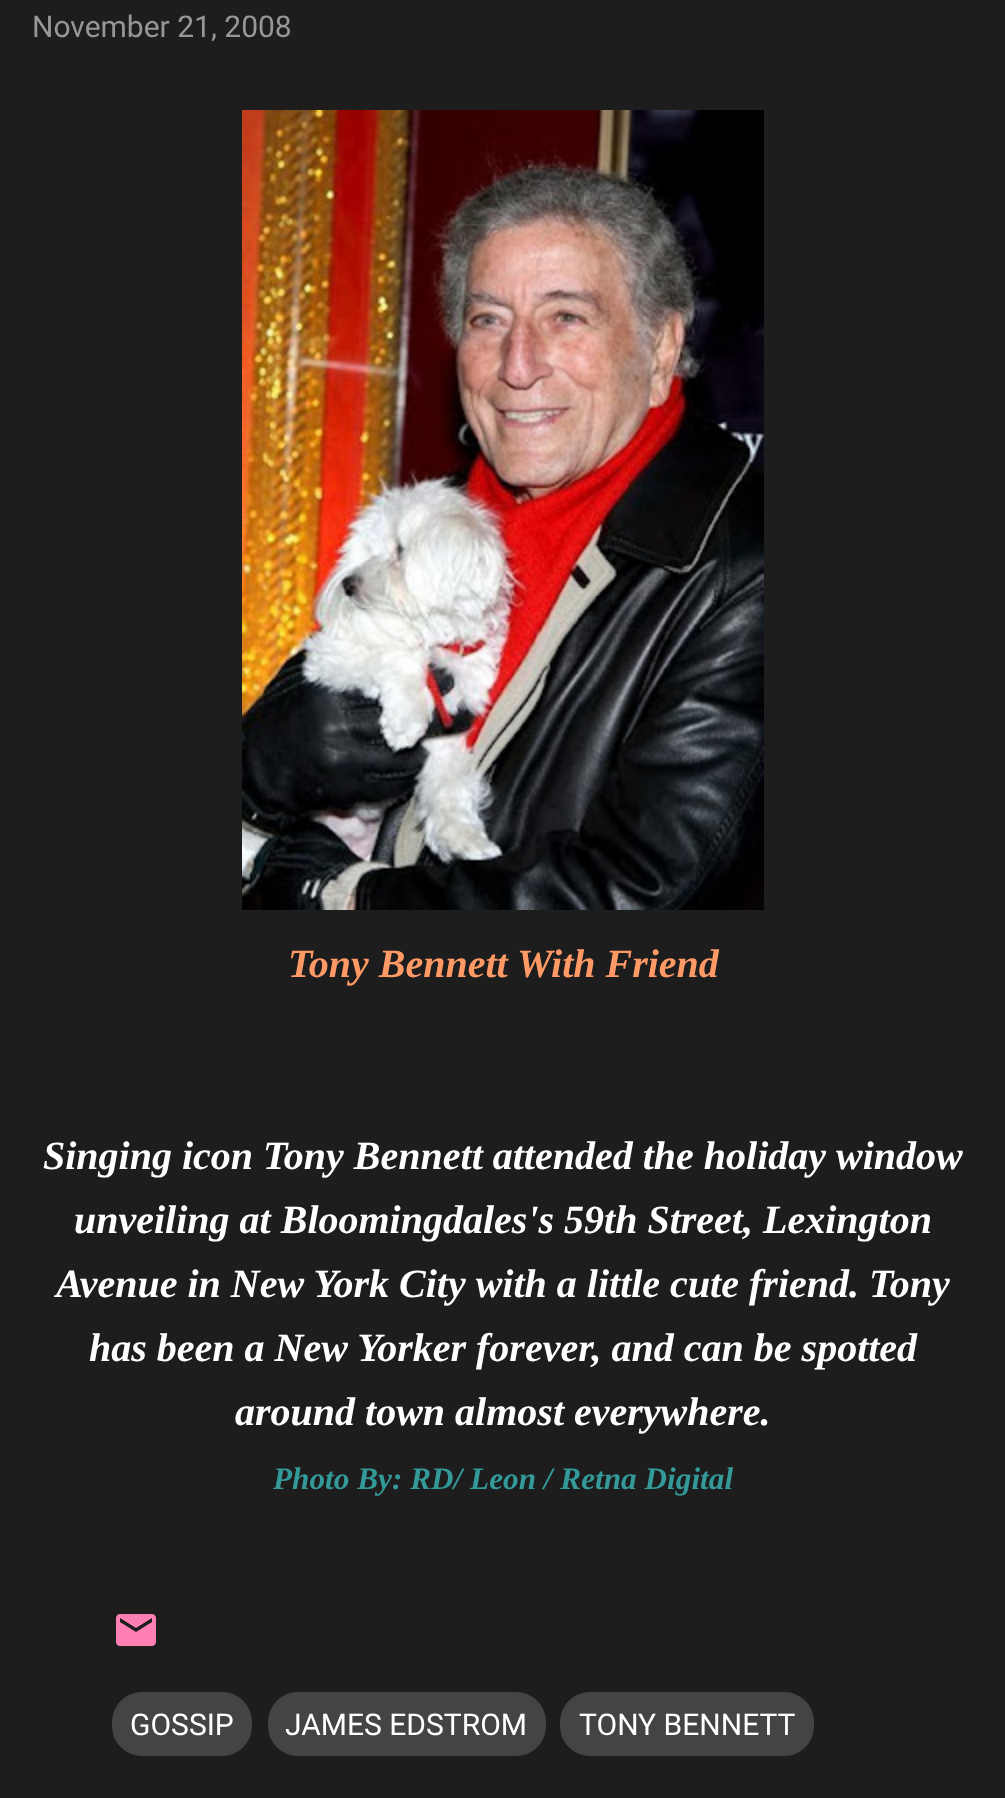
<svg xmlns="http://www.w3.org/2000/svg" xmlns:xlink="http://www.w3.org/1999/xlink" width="1005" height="1798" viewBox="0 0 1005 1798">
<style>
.cls-1{font:30px Roboto;fill:#979797}
.cls-2{font:italic bold 40px Liberation Serif;fill:#ff9966}
.cls-3{font:italic bold 40px Liberation Serif;fill:#ffffff}
.cls-4{font:italic bold 31.25px Liberation Serif;fill:#339999}
.cls-5{font:30px Roboto;fill:#ffffff}
</style>
<rect width="100%" height="100%" fill="#1d1d1d"/>
<image xlink:href="image0.png" x="242" y="110" width="522" height="800"/>
<image xlink:href="image1.png" x="116" y="1614" width="40" height="32"/>
<rect fill="#444444" stroke="#444444" stroke-width="2" x="113" y="1693" width="138" height="62" rx="29"/>
<rect fill="#444444" stroke="#444444" stroke-width="2" x="269" y="1693" width="276" height="62" rx="29"/>
<rect fill="#444444" stroke="#444444" stroke-width="2" x="561" y="1693" width="252" height="62" rx="29"/>
<text class="cls-1" x="32" y="37">November 21, 2008</text>
<text class="cls-2" x="288" y="977">Tony Bennett With Friend</text>
<text class="cls-3" x="43" y="1169">Singing icon Tony Bennett attended the holiday window</text>
<text class="cls-3" x="74" y="1233">unveiling at Bloomingdales's 59th Street, Lexington</text>
<text class="cls-3" x="56" y="1297">Avenue in New York City with a little cute friend. Tony</text>
<text class="cls-3" x="89" y="1361">has been a New Yorker forever, and can be spotted</text>
<text class="cls-3" x="235" y="1425">around town almost everywhere.</text>
<text class="cls-4" x="273" y="1489">Photo By: RD/ Leon / Retna Digital</text>
<text class="cls-5" x="130" y="1735">GOSSIP</text>
<text class="cls-5" x="285" y="1735">JAMES EDSTROM</text>
<text class="cls-5" x="579" y="1735">TONY BENNETT</text>
</svg>
